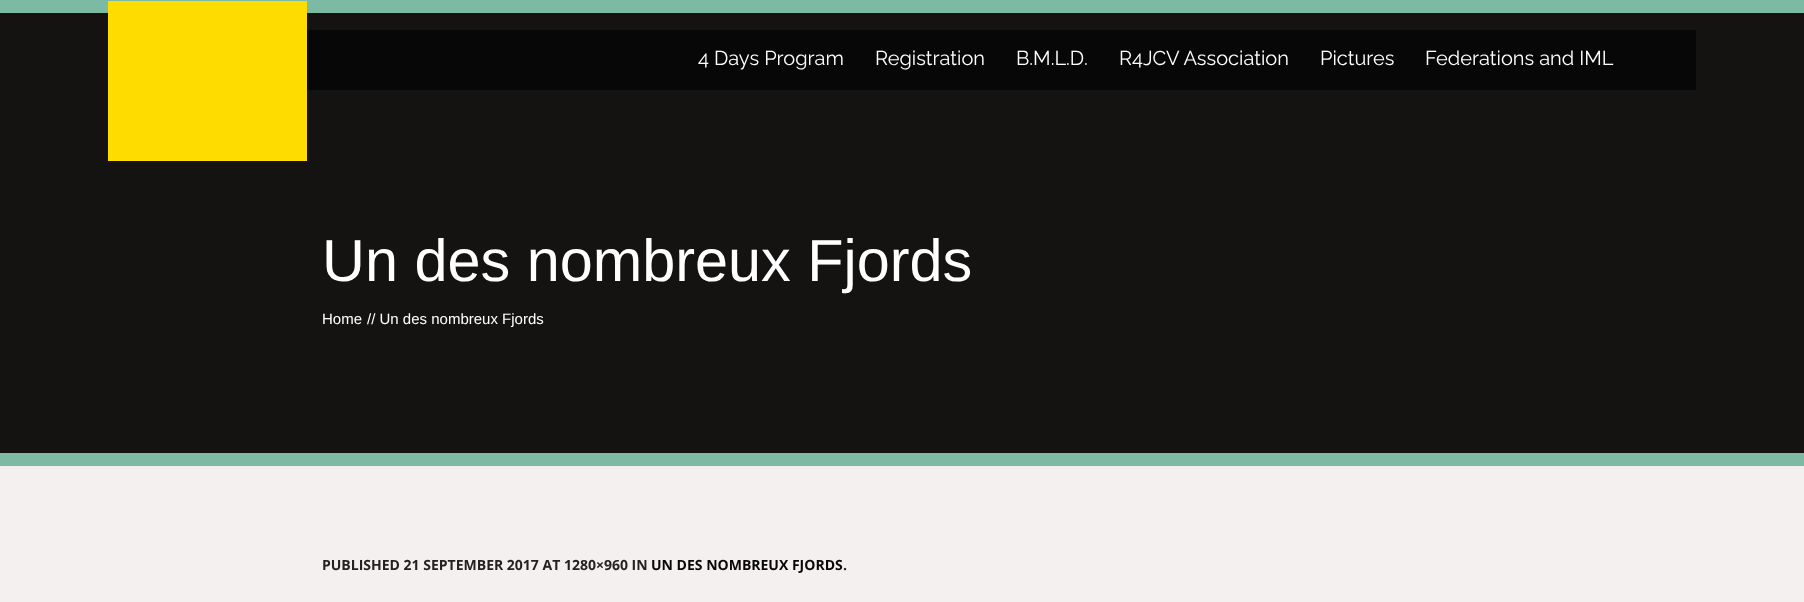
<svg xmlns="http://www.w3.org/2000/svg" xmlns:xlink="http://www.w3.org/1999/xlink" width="1804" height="602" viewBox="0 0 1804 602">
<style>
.cls-1{font:20px Raleway;fill:#ffffff}
.cls-2{font:59.4px Liberation Sans;fill:#ffffff}
.cls-3{font:15px Liberation Sans;fill:#ffffff}
.cls-4{font:bold 14px Open Sans;fill:#242120}
.cls-5{font:bold 14px Open Sans;fill:#070707}
</style>
<rect width="100%" height="100%" fill="#7cbaa3"/>
<rect fill="#141312" x="0" y="13" width="1804" height="440"/>
<rect fill="#070707" x="307" y="30" width="1389" height="60"/>
<rect fill="#ffdc00" x="108" y="1" width="199" height="160"/>
<rect fill="#f5f0f0" x="0" y="466" width="1804" height="136"/>
<text class="cls-1" x="698" y="65">4 Days Program</text>
<text class="cls-1" x="875" y="65">Registration</text>
<text class="cls-1" x="1016" y="65">B.M.L.D.</text>
<text class="cls-1" x="1119" y="65">R4JCV Association</text>
<text class="cls-1" x="1320" y="65">Pictures</text>
<text class="cls-1" x="1425" y="65">Federations and IML</text>
<text class="cls-2" x="322" y="281">Un des nombreux Fjords</text>
<text class="cls-3" x="322" y="324">Home</text>
<text class="cls-3" x="367" y="324">// Un des nombreux Fjords</text>
<text class="cls-4" x="322" y="570">PUBLISHED 21 SEPTEMBER 2017 AT 1280×960 IN</text>
<text class="cls-5" x="651" y="570">UN DES NOMBREUX FJORDS</text>
<text class="cls-4" x="843" y="570">.</text>
</svg>
